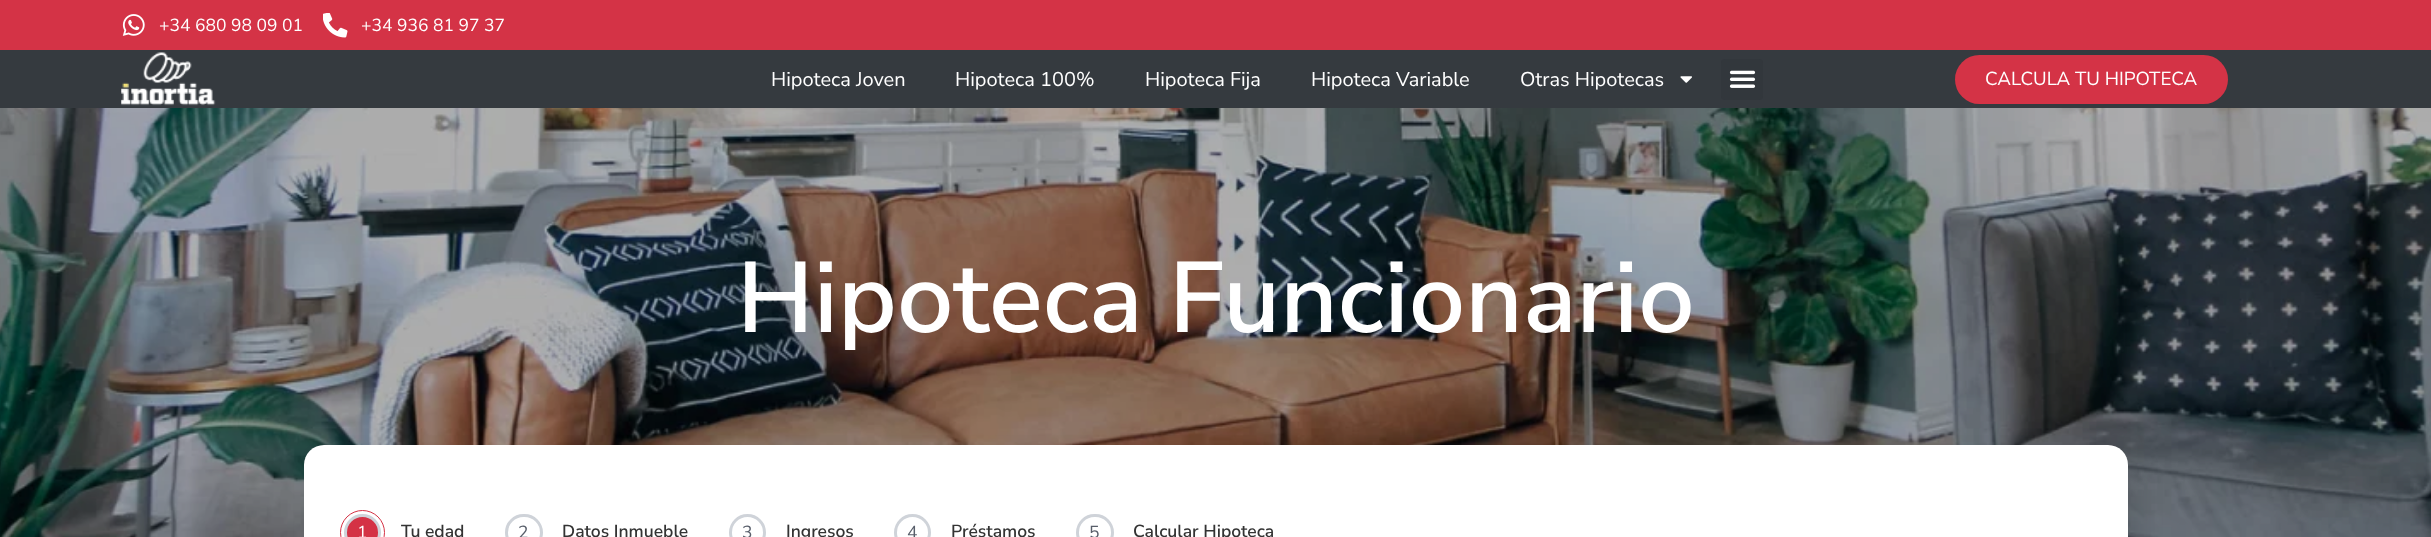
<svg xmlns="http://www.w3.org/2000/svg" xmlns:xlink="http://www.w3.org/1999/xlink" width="2431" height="537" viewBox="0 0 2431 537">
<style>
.cls-1{font:17.5px Nunito Sans;fill:#ffffff}
.cls-2{font:20px Nunito Sans;fill:#ffffff}
.cls-3{font:18.75px Nunito Sans;fill:#ffffff}
.cls-4{font:600 100px Nunito Sans;fill:#ffffff}
.cls-5{font:600 17.5px Nunito Sans;fill:#333333}
.cls-6{font:17.5px Nunito Sans;fill:#585e6a}
</style>
<rect width="100%" height="100%" fill="#d43346"/>
<image xlink:href="image0.png" x="122" y="14" width="23" height="22"/>
<image xlink:href="image1.png" x="323" y="13" width="25" height="25"/>
<rect fill="#353a3f" x="0" y="50" width="2431" height="58"/>
<image xlink:href="image2.png" x="121" y="52" width="95" height="54"/>
<image xlink:href="image3.png" x="1680" y="76" width="12" height="7"/>
<rect fill="#32373c" x="1721" y="59" width="42" height="41" rx="4"/>
<image xlink:href="image4.png" x="1729" y="70" width="27" height="18"/>
<rect fill="#d43346" x="1955" y="55" width="273" height="49" rx="24.5"/>
<image xlink:href="image5.png" x="0" y="108" width="2431" height="429"/>
<rect fill="#000000" fill-opacity="0.1" filter="blur(12.5px)" x="316" y="458" width="1824" height="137" rx="20"/>
<rect fill="#ffffff" x="304" y="445" width="1824" height="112" rx="20"/>
<circle fill="#d43245" stroke="#cfd3d9" stroke-width="3" cx="362.5" cy="532.5" r="17"/>
<rect fill="none" stroke="#cfd3d9" stroke-width="3" x="506.5" y="515.5" width="35" height="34" rx="17"/>
<circle fill="none" stroke="#cfd3d9" stroke-width="3" cx="747.5" cy="532.5" r="17"/>
<circle fill="none" stroke="#cfd3d9" stroke-width="3" cx="912.5" cy="532.5" r="17"/>
<rect fill="none" stroke="#cfd3d9" stroke-width="3" x="1077.5" y="515.5" width="35" height="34" rx="17"/>
<text class="cls-1" x="159" y="31">+34 680 98 09 01</text>
<text class="cls-1" x="361" y="31">+34 936 81 97 37</text>
<text class="cls-2" x="771" y="86">Hipoteca Joven</text>
<text class="cls-2" x="955" y="86">Hipoteca 100%</text>
<text class="cls-2" x="1145" y="86">Hipoteca Fija</text>
<text class="cls-2" x="1311" y="86">Hipoteca Variable</text>
<text class="cls-2" x="1520" y="86">Otras Hipotecas</text>
<text class="cls-3" x="1985" y="85">CALCULA TU HIPOTECA</text>
<text class="cls-4" x="737" y="332">Hipoteca Funcionario</text>
<text class="cls-1" x="357" y="538">1</text>
<circle fill="none" stroke="#d43245" cx="362.5" cy="532.5" r="22"/>
<text class="cls-5" x="401" y="537">Tu edad</text>
<text class="cls-6" x="518" y="538">2</text>
<text class="cls-5" x="562" y="537">Datos Inmueble</text>
<text class="cls-6" x="742" y="538">3</text>
<text class="cls-5" x="786" y="537">Ingresos</text>
<text class="cls-6" x="907" y="538">4</text>
<text class="cls-5" x="951" y="537">Préstamos</text>
<text class="cls-6" x="1089" y="538">5</text>
<text class="cls-5" x="1133" y="537">Calcular Hipoteca</text>
</svg>
